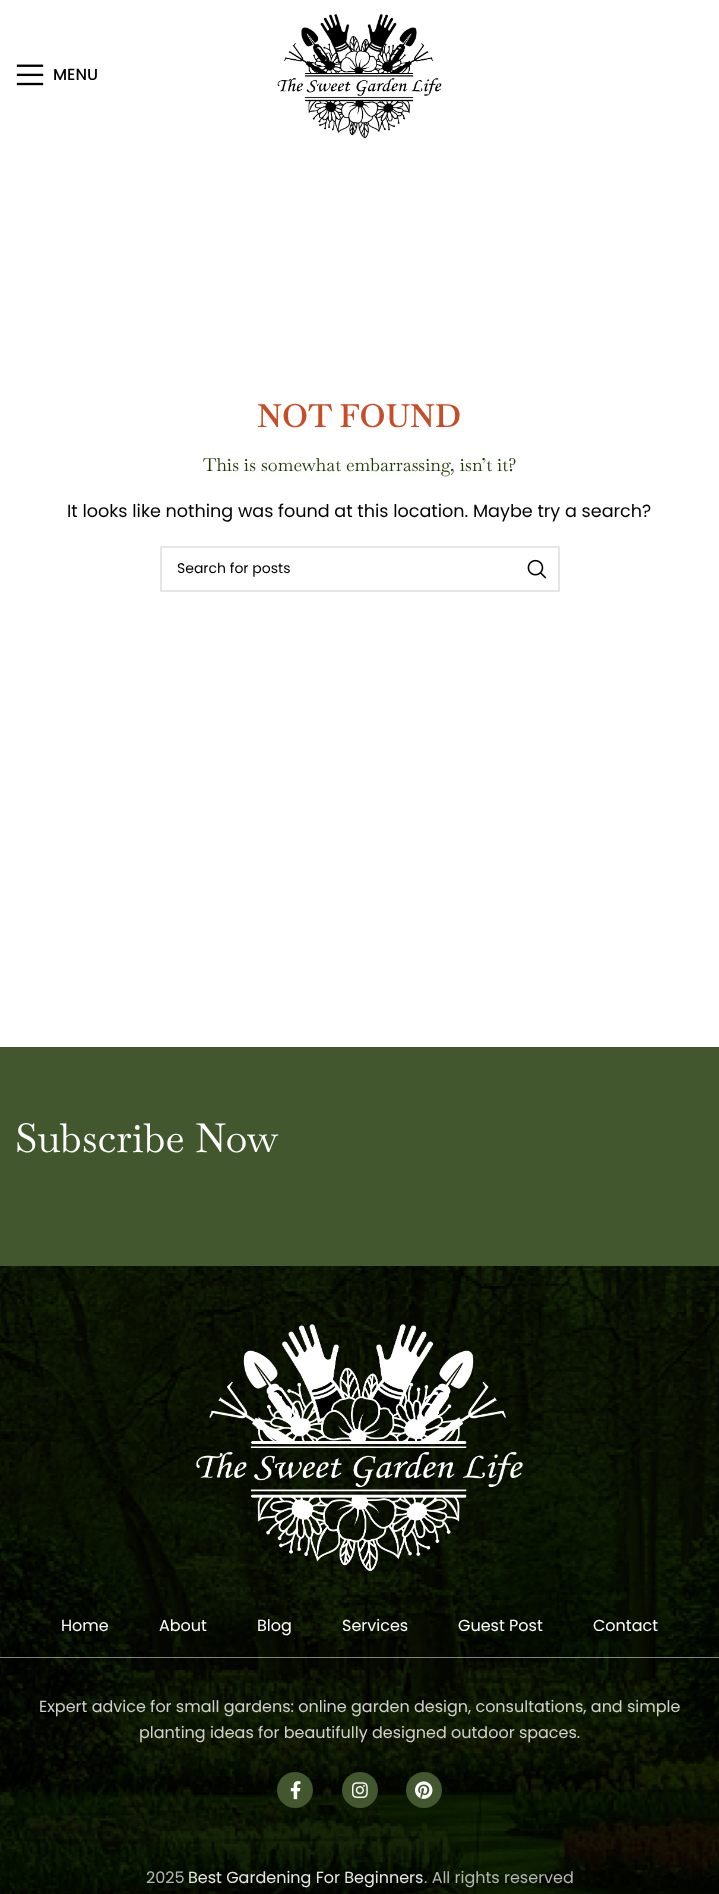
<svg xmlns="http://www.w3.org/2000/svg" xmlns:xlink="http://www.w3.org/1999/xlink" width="719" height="1894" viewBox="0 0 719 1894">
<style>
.cls-1{font:500 16px Poppins;fill:#000000}
.cls-2{font:600 32px Baskervville;fill:#c74d28}
.cls-3{font:18px Baskervville;fill:#1c3800}
.cls-4{font:17.6px Poppins;fill:#000000}
.cls-5{font:14px Poppins;fill:#000000}
.cls-6{font:40px Baskervville;fill:#ffffff}
.cls-7{font:16px Poppins;fill:#ffffff}
.cls-8{font:16px Poppins;fill:#cfd1cc}
.cls-9{font:16px Poppins;fill:#b4b7b3}
.cls-10{font:16px Poppins;fill:#e6e7e6}
</style>
<rect width="100%" height="100%" fill="#ffffff"/>
<image xlink:href="image0.png" x="16" y="64" width="28" height="22"/>
<image xlink:href="image1.png" x="277" y="14" width="165" height="125"/>
<rect fill="none" stroke="#e6e6e6" stroke-width="2" x="161" y="547" width="398" height="44"/>
<image xlink:href="image2.png" x="527" y="559" width="20" height="20"/>
<rect fill="#42572d" x="0" y="1047" width="719" height="219"/>
<image xlink:href="image3.png" x="0" y="1266" width="719" height="628"/>
<rect fill="#ffffff" fill-opacity="0.5" x="0" y="1657" width="719" height="1"/>
<image xlink:href="image4.png" x="196" y="1324" width="327" height="248"/>
<circle fill="#42572d" cx="295" cy="1790" r="18"/>
<image xlink:href="image5.png" x="290" y="1781" width="11" height="19"/>
<circle fill="#42572d" cx="360" cy="1790" r="18"/>
<image xlink:href="image6.png" x="352" y="1782" width="16" height="16"/>
<circle fill="#42572d" cx="424" cy="1790" r="18"/>
<image xlink:href="image7.png" x="415" y="1781" width="18" height="18"/>
<text class="cls-1" x="53" y="80">MENU</text>
<text class="cls-2" x="257" y="427">NOT FOUND</text>
<text class="cls-3" x="203" y="471">This is somewhat embarrassing, isn’t it?</text>
<text class="cls-4" x="67" y="517">It looks like nothing was found at this location. Maybe try a search?</text>
<text class="cls-5" x="177" y="573">Search for posts</text>
<text class="cls-6" x="15" y="1152">Subscribe Now</text>
<text class="cls-7" x="61" y="1631">Home</text>
<text class="cls-7" x="159" y="1631">About</text>
<text class="cls-7" x="257" y="1631">Blog</text>
<text class="cls-7" x="342" y="1631">Services</text>
<text class="cls-7" x="458" y="1631">Guest Post</text>
<text class="cls-7" x="593" y="1631">Contact</text>
<text class="cls-8" x="39" y="1712">Expert advice for small gardens: online garden design, consultations, and simple</text>
<text class="cls-8" x="139" y="1738">planting ideas for beautifully designed outdoor spaces.</text>
<text class="cls-9" x="146" y="1883">2025</text>
<text class="cls-10" x="188" y="1883">Best Gardening For Beginners</text>
<text class="cls-9" x="424" y="1883">. All rights reserved</text>
</svg>
